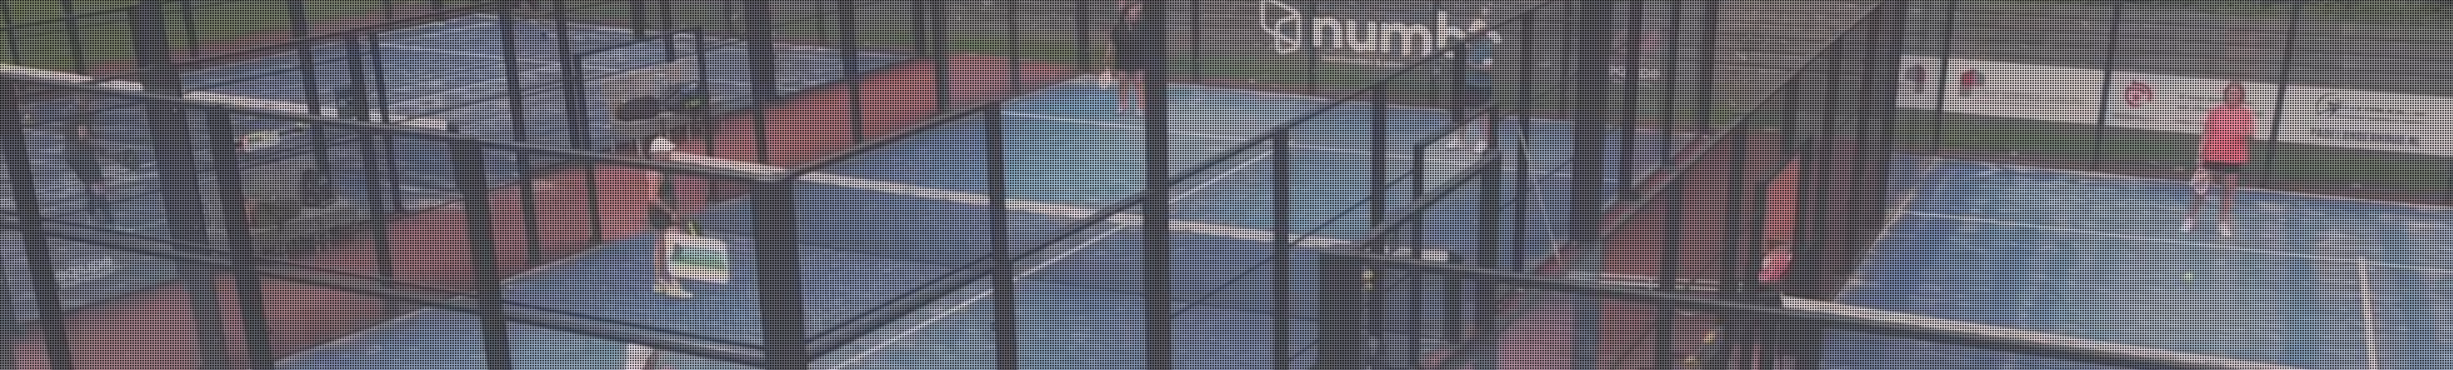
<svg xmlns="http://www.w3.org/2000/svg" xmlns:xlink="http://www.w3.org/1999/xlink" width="2453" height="370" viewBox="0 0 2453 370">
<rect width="100%" height="100%" fill="#e3e3e8"/>
<image xlink:href="image0.png" x="0" y="0" width="2453" height="370"/>
<image xlink:href="image1.png" x="0" y="0" width="2453" height="370"/>
</svg>
